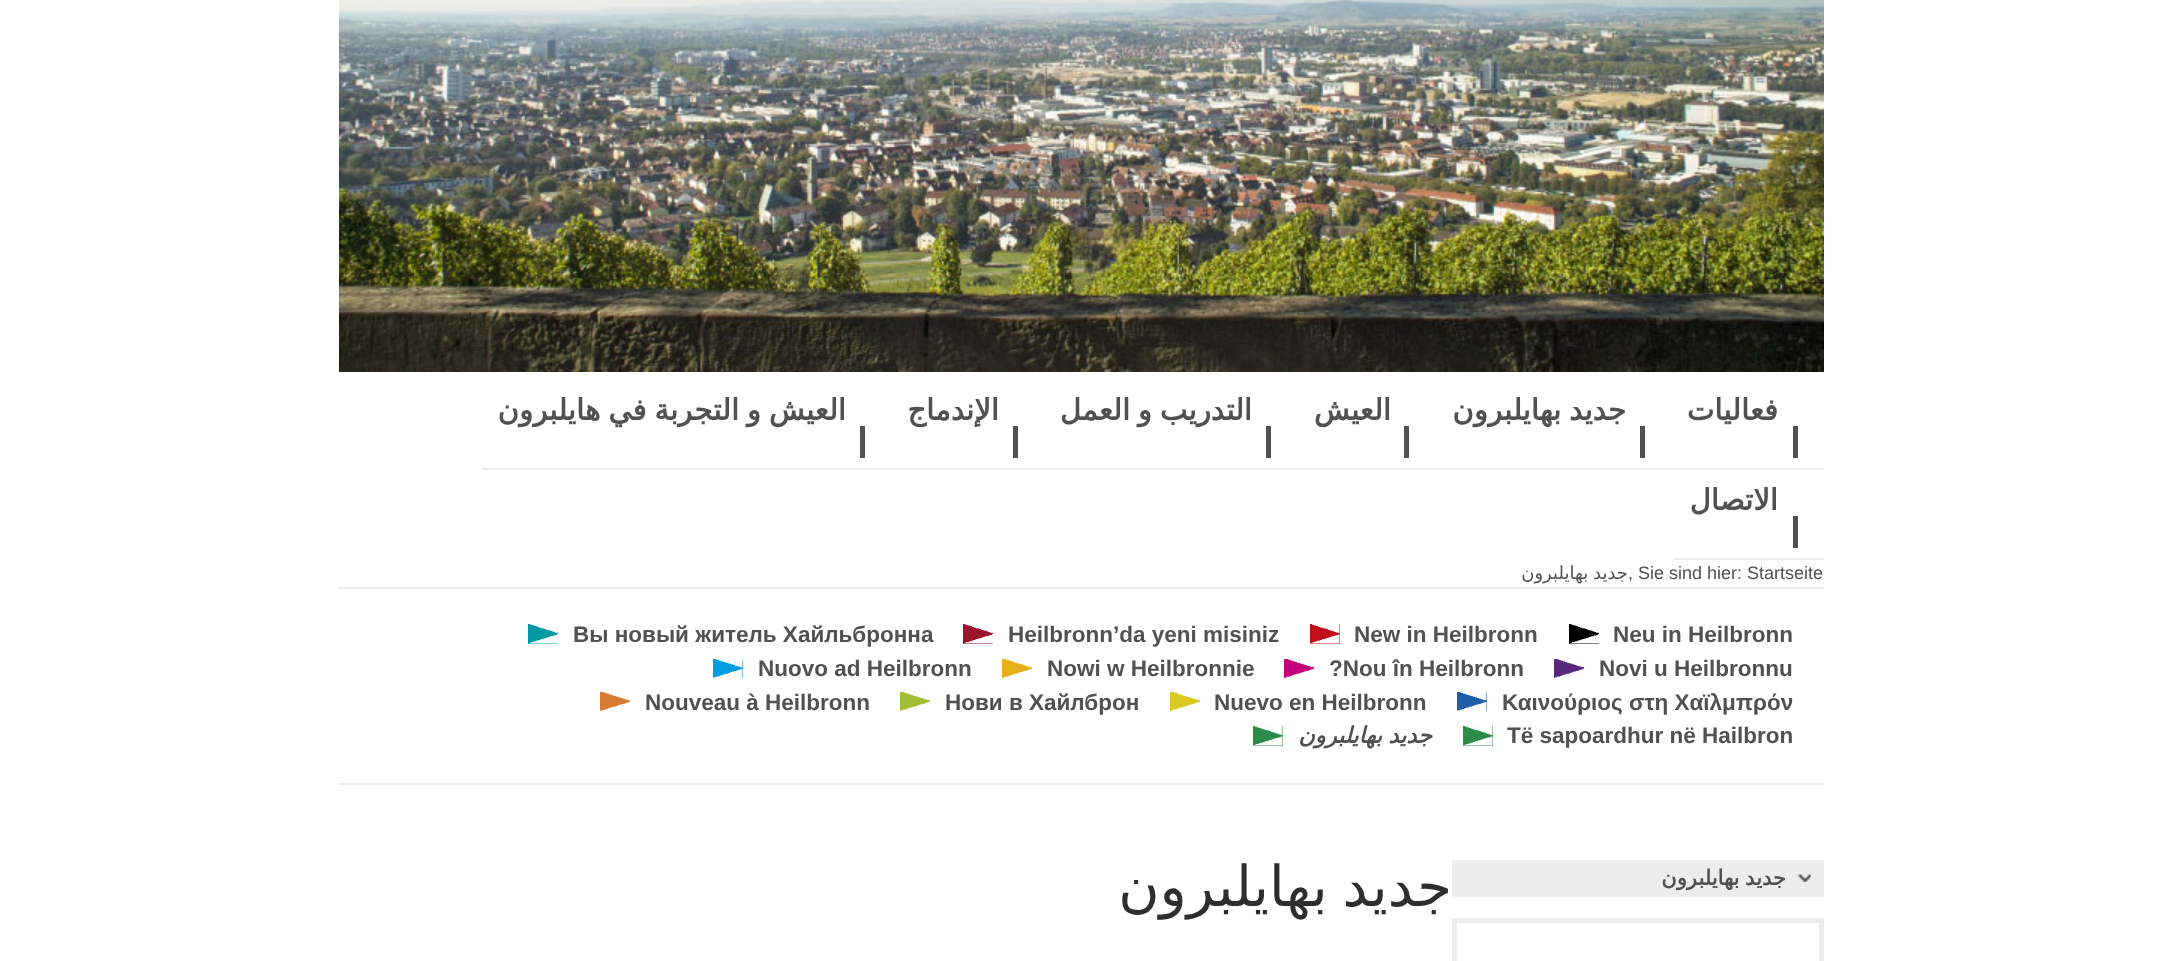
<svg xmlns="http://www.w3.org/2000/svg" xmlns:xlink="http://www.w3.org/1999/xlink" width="2160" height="961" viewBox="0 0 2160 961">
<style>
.cls-1{font:bold 29.25px DejaVu Sans;direction:rtl;fill:#515151}
.cls-2{font:18px DejaVu Sans;direction:rtl;fill:#515151}
.cls-3{font:18px Liberation Sans;fill:#515151}
.cls-4{font:bold 22.5px Liberation Sans;fill:#515151}
.cls-5{font:italic bold 22.5px DejaVu Sans;direction:rtl;fill:#515151}
.cls-6{font:56.25px DejaVu Sans;direction:rtl;fill:#2e2d30}
.cls-7{font:bold 21px DejaVu Sans;direction:rtl;fill:#515151}
</style>
<rect width="100%" height="100%" fill="#ffffff"/>
<image xlink:href="image0.png" x="339" y="0" width="1485" height="372"/>
<rect fill="#515151" x="860" y="426" width="5" height="32"/>
<rect fill="#515151" x="1013" y="426" width="5" height="32"/>
<rect fill="#515151" x="1266" y="426" width="5" height="32"/>
<rect fill="#515151" x="1404" y="426" width="5" height="32"/>
<rect fill="#515151" x="1640" y="426" width="5" height="32"/>
<rect fill="#ededed" x="482" y="468" width="1342" height="2"/>
<rect fill="#515151" x="1793" y="426" width="5" height="32"/>
<rect fill="#ededed" x="1674" y="558" width="150" height="2"/>
<rect fill="#515151" x="1793" y="516" width="5" height="32"/>
<rect fill="#ededed" x="338" y="587" width="1486" height="2"/>
<rect fill="#ededed" x="338" y="783" width="1486" height="2"/>
<rect fill="#0099a2" x="528" y="624" width="30" height="20"/>
<image xlink:href="image1.png" x="529" y="624" width="29" height="20"/>
<rect fill="#9d132c" x="963" y="624" width="30" height="20"/>
<image xlink:href="image2.png" x="964" y="624" width="29" height="20"/>
<rect fill="#c20e1a" x="1310" y="624" width="30" height="20"/>
<image xlink:href="image3.png" x="1310" y="624" width="30" height="20"/>
<rect fill="#000000" x="1569" y="624" width="30" height="20"/>
<image xlink:href="image4.png" x="1570" y="624" width="29" height="20"/>
<rect fill="#009de0" x="713" y="659" width="30" height="19"/>
<image xlink:href="image5.png" x="713" y="658" width="30" height="20"/>
<rect fill="#e7af19" x="1002" y="659" width="30" height="19"/>
<image xlink:href="image6.png" x="1003" y="658" width="29" height="20"/>
<rect fill="#c4007a" x="1284" y="659" width="30" height="19"/>
<image xlink:href="image7.png" x="1285" y="658" width="29" height="20"/>
<rect fill="#5a287f" x="1554" y="659" width="30" height="19"/>
<image xlink:href="image8.png" x="1555" y="658" width="29" height="20"/>
<rect fill="#d67d31" x="600" y="692" width="30" height="19"/>
<image xlink:href="image9.png" x="601" y="691" width="29" height="20"/>
<rect fill="#a2c037" x="900" y="692" width="30" height="19"/>
<image xlink:href="image10.png" x="901" y="691" width="29" height="20"/>
<rect fill="#dcc822" x="1170" y="692" width="30" height="19"/>
<image xlink:href="image11.png" x="1171" y="691" width="29" height="20"/>
<rect fill="#1f5da6" x="1457" y="692" width="30" height="19"/>
<image xlink:href="image12.png" x="1457" y="691" width="30" height="20"/>
<rect fill="#2a8c46" x="1253" y="726" width="30" height="20"/>
<image xlink:href="image13.png" x="1253" y="726" width="30" height="20"/>
<rect fill="#2a8c46" x="1463" y="726" width="30" height="20"/>
<image xlink:href="image13.png" x="1463" y="726" width="30" height="20"/>
<rect fill="#ededed" x="1452" y="860" width="372" height="37"/>
<image xlink:href="image14.png" x="1798" y="874" width="13" height="8"/>
<rect fill="none" stroke="#ededed" stroke-width="5" x="1454.5" y="920.5" width="367" height="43"/>
<text class="cls-1" x="846" y="420" word-spacing="-1.5">العيش و التجربة في هايلبرون</text>
<text class="cls-1" x="999" y="420">الإندماج</text>
<text class="cls-1" x="1252" y="420" word-spacing="-1.5">التدريب و العمل</text>
<text class="cls-1" x="1391" y="420">العيش</text>
<text class="cls-1" x="1626" y="420" word-spacing="-1.5">جديد بهايلبرون</text>
<text class="cls-1" x="1778" y="420">فعاليات</text>
<text class="cls-1" x="1778" y="510">الاتصال</text>
<text class="cls-2" x="1628" y="579" word-spacing="-1">جديد بهايلبرون</text>
<text class="cls-3" x="1628" y="579">,</text>
<text class="cls-3" x="1638" y="579">Sie sind hier: Startseite</text>
<text class="cls-4" x="573" y="642">Вы новый житель Хайльбронна</text>
<text class="cls-4" x="1008" y="642">Heilbronn’da yeni misiniz</text>
<text class="cls-4" x="1354" y="642">New in Heilbronn</text>
<text class="cls-4" x="1613" y="642">Neu in Heilbronn</text>
<text class="cls-4" x="758" y="676">Nuovo ad Heilbronn</text>
<text class="cls-4" x="1047" y="676">Nowi w Heilbronnie</text>
<text class="cls-4" x="1329" y="676">?Nou în Heilbronn</text>
<text class="cls-4" x="1599" y="676">Novi u Heilbronnu</text>
<text class="cls-4" x="645" y="710">Nouveau à Heilbronn</text>
<text class="cls-4" x="945" y="710">Нови в Хайлброн</text>
<text class="cls-4" x="1214" y="710">Nuevo en Heilbronn</text>
<text class="cls-4" x="1502" y="710">Καινούριος στη Χαϊλμπρόν</text>
<text class="cls-5" x="1432" y="743" word-spacing="-1">جديد بهايلبرون</text>
<text class="cls-4" x="1507" y="743">Të sapoardhur në Hailbron</text>
<text class="cls-6" x="1452" y="906" word-spacing="-3">جديد بهايلبرون</text>
<text class="cls-7" x="1786" y="885" word-spacing="-1">جديد بهايلبرون</text>
</svg>
